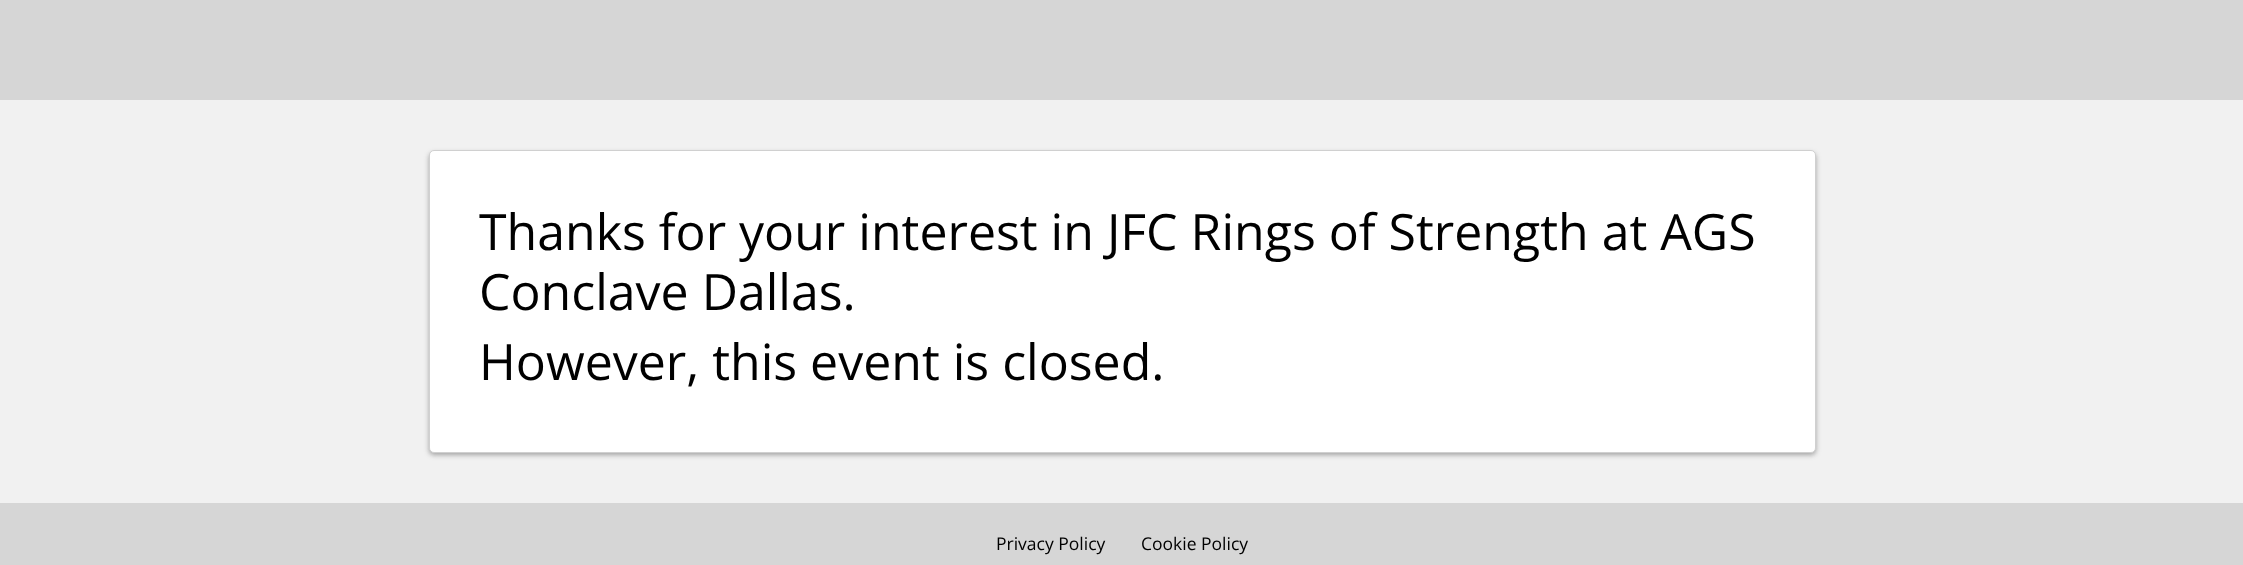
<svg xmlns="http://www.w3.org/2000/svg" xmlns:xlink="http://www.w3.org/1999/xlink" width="2243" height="565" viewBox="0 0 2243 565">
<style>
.cls-1{font:50px Open Sans;fill:#000000}
.cls-2{font:17.5px Open Sans;fill:#000000}
</style>
<rect width="100%" height="100%" fill="#f1f1f1"/>
<rect fill="#d6d6d6" x="0" y="0" width="2243" height="100"/>
<rect fill="#545454" fill-opacity="0.5" filter="blur(2.5px)" x="429" y="153" width="1387" height="302" rx="5"/>
<rect fill="#ffffff" stroke="#d0d0d0" x="429.5" y="150.5" width="1386" height="302" rx="4.5"/>
<rect fill="#d6d6d6" x="0" y="503" width="2243" height="62"/>
<text class="cls-1"><tspan x="479" y="250">Thanks for your interest in JFC Rings of Strength at AGS</tspan><tspan x="479" y="310">Conclave Dallas.</tspan><tspan x="479" y="380">However, this event is closed.</tspan></text>
<text class="cls-2" x="996" y="550">Privacy Policy</text>
<text class="cls-2" x="1141" y="550">Cookie Policy</text>
</svg>
